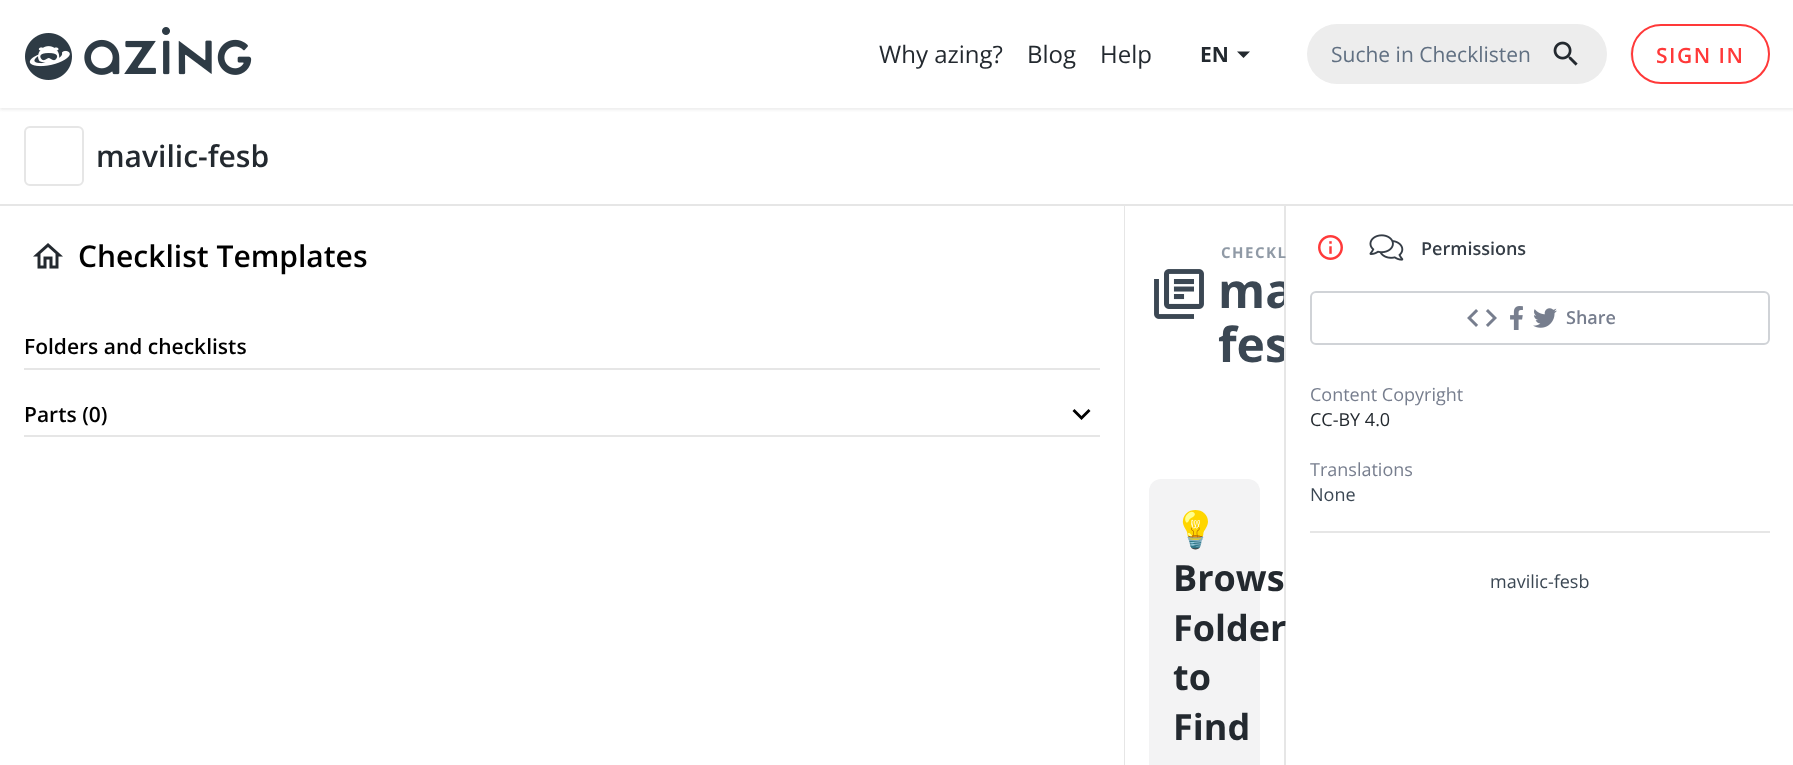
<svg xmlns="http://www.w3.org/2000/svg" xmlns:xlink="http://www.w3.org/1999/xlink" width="1793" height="765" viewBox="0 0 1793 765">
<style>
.cls-1{font:24px Open Sans;fill:#23292f}
.cls-2{font:bold 21px Open Sans;fill:#23292f}
.cls-3{font:21px Open Sans;fill:#617082}
.cls-4{font:600 21px Open Sans;letter-spacing:1.5px;fill:#ff3939}
.cls-5{font:600 30px Open Sans;fill:#23292f}
.cls-6{font:600 30px Open Sans;fill:#000000}
.cls-7{font:600 21px Open Sans;fill:#000000}
.cls-8{font:bold 15px Open Sans;letter-spacing:1.5px;fill:#909aa6}
.cls-9{font:bold 48px Open Sans;fill:#3b4753}
.cls-10{font:bold 36px Noto Color Emoji;fill:#23292f}
.cls-11{font:bold 36px Open Sans;fill:#23292f}
.cls-12{font:600 18px Open Sans;fill:#353d46}
.cls-13{font:600 18px Open Sans;fill:#777e8e}
.cls-14{font:18px Open Sans;fill:#777e8e}
.cls-15{font:18px Open Sans;fill:#23292f}
.cls-16{font:18px Open Sans;fill:#3b4753}
</style>
<defs>
<clipPath id="clip1"><rect x="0" y="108" width="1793" height="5"/></clipPath>
<clipPath id="clip2"><rect x="1125" y="206" width="159" height="559"/></clipPath>
</defs>
<rect width="100%" height="100%" fill="#ffffff"/>
<g clip-path="url(#clip1)">
<rect fill="#ededed" filter="blur(1.5px)" x="0" y="2" width="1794" height="108"/>
</g>
<image xlink:href="image0.png" x="25" y="27" width="227" height="53"/>
<path fill="#23292f" d="M1237 51.5L1243.5 58L1250 51.5Z"/>
<rect fill="#ededed" x="1307" y="24" width="300" height="60" rx="30"/>
<image xlink:href="image1.png" x="1553" y="41" width="25" height="25"/>
<ellipse fill="#ebebeb" cx="1700" cy="54" rx="70" ry="30"/>
<rect fill="#ffffff" stroke="#ff3939" stroke-width="2" x="1632" y="25" width="137" height="58" rx="29"/>
<rect fill="#e6e6e6" x="0" y="204" width="1793" height="2"/>
<rect fill="none" stroke="#e6e6e6" stroke-width="2" x="25" y="127" width="58" height="58" rx="5"/>
<rect fill="#e6e6e6" x="1124" y="206" width="1" height="559"/>
<image xlink:href="image2.png" x="33" y="243" width="30" height="26"/>
<rect fill="#e6e6e6" x="24" y="368" width="1076" height="2"/>
<rect fill="#e6e6e6" x="24" y="435" width="1076" height="2"/>
<path fill="#000000" d="M1088.5 409L1081.5 416L1074.5 409L1072.5 411L1081.5 420L1090.5 411Z"/>
<image xlink:href="image3.png" x="1154" y="269" width="50" height="50"/>
<path fill="#f3f3f4" d="M1161 479H1248C1254.5 479 1260 484.5 1260 491V765H1149V491C1149 484.5 1154.5 479 1161 479Z"/>
<rect fill="#e6e6e6" x="1284" y="206" width="2" height="559"/>
<image xlink:href="image4.png" x="1318" y="235" width="25" height="25"/>
<image xlink:href="image5.png" x="1369" y="234" width="35" height="27"/>
<rect fill="none" stroke="#d0d3d7" stroke-width="2" x="1311" y="292" width="458" height="52" rx="5"/>
<image xlink:href="image6.png" x="1467" y="309" width="30" height="18"/>
<image xlink:href="image7.png" x="1510" y="306" width="13" height="24"/>
<image xlink:href="image8.png" x="1533" y="308" width="24" height="20"/>
<rect fill="#e6e6e6" x="1310" y="531" width="460" height="2"/>
<text class="cls-1" x="879" y="63">Why azing?</text>
<text class="cls-1" x="1027" y="63">Blog</text>
<text class="cls-1" x="1100" y="63">Help</text>
<text class="cls-2" x="1200" y="62">EN</text>
<text class="cls-3" x="1331" y="62">Suche in Checklisten</text>
<text class="cls-4" x="1656" y="63">SIGN IN</text>
<text class="cls-5" x="96" y="167">mavilic-fesb</text>
<text class="cls-6" x="78" y="267">Checklist Templates</text>
<text class="cls-7" x="24" y="354">Folders and checklists</text>
<text class="cls-7" x="24" y="422">Parts (0)</text>
<text class="cls-8" x="1221" y="258">CHECKL</text>
<g clip-path="url(#clip2)">
<text class="cls-9"><tspan x="1218" y="308">ma</tspan><tspan x="1218" y="362">fes</tspan></text>
</g>
<text class="cls-10" x="1173" y="542">💡</text>
<text class="cls-11"><tspan x="1173" y="591">Brows</tspan><tspan x="1173" y="641">Folder</tspan><tspan x="1173" y="690">to</tspan><tspan x="1173" y="740">Find</tspan></text>
<text class="cls-12" x="1421" y="255">Permissions</text>
<text class="cls-13" x="1566" y="324">Share</text>
<text class="cls-14" x="1310" y="401">Content Copyright</text>
<text class="cls-15" x="1310" y="426">CC-BY 4.0</text>
<text class="cls-14" x="1310" y="476">Translations</text>
<text class="cls-16" x="1310" y="501">None</text>
<text class="cls-16" x="1490" y="588">mavilic-fesb</text>
</svg>
